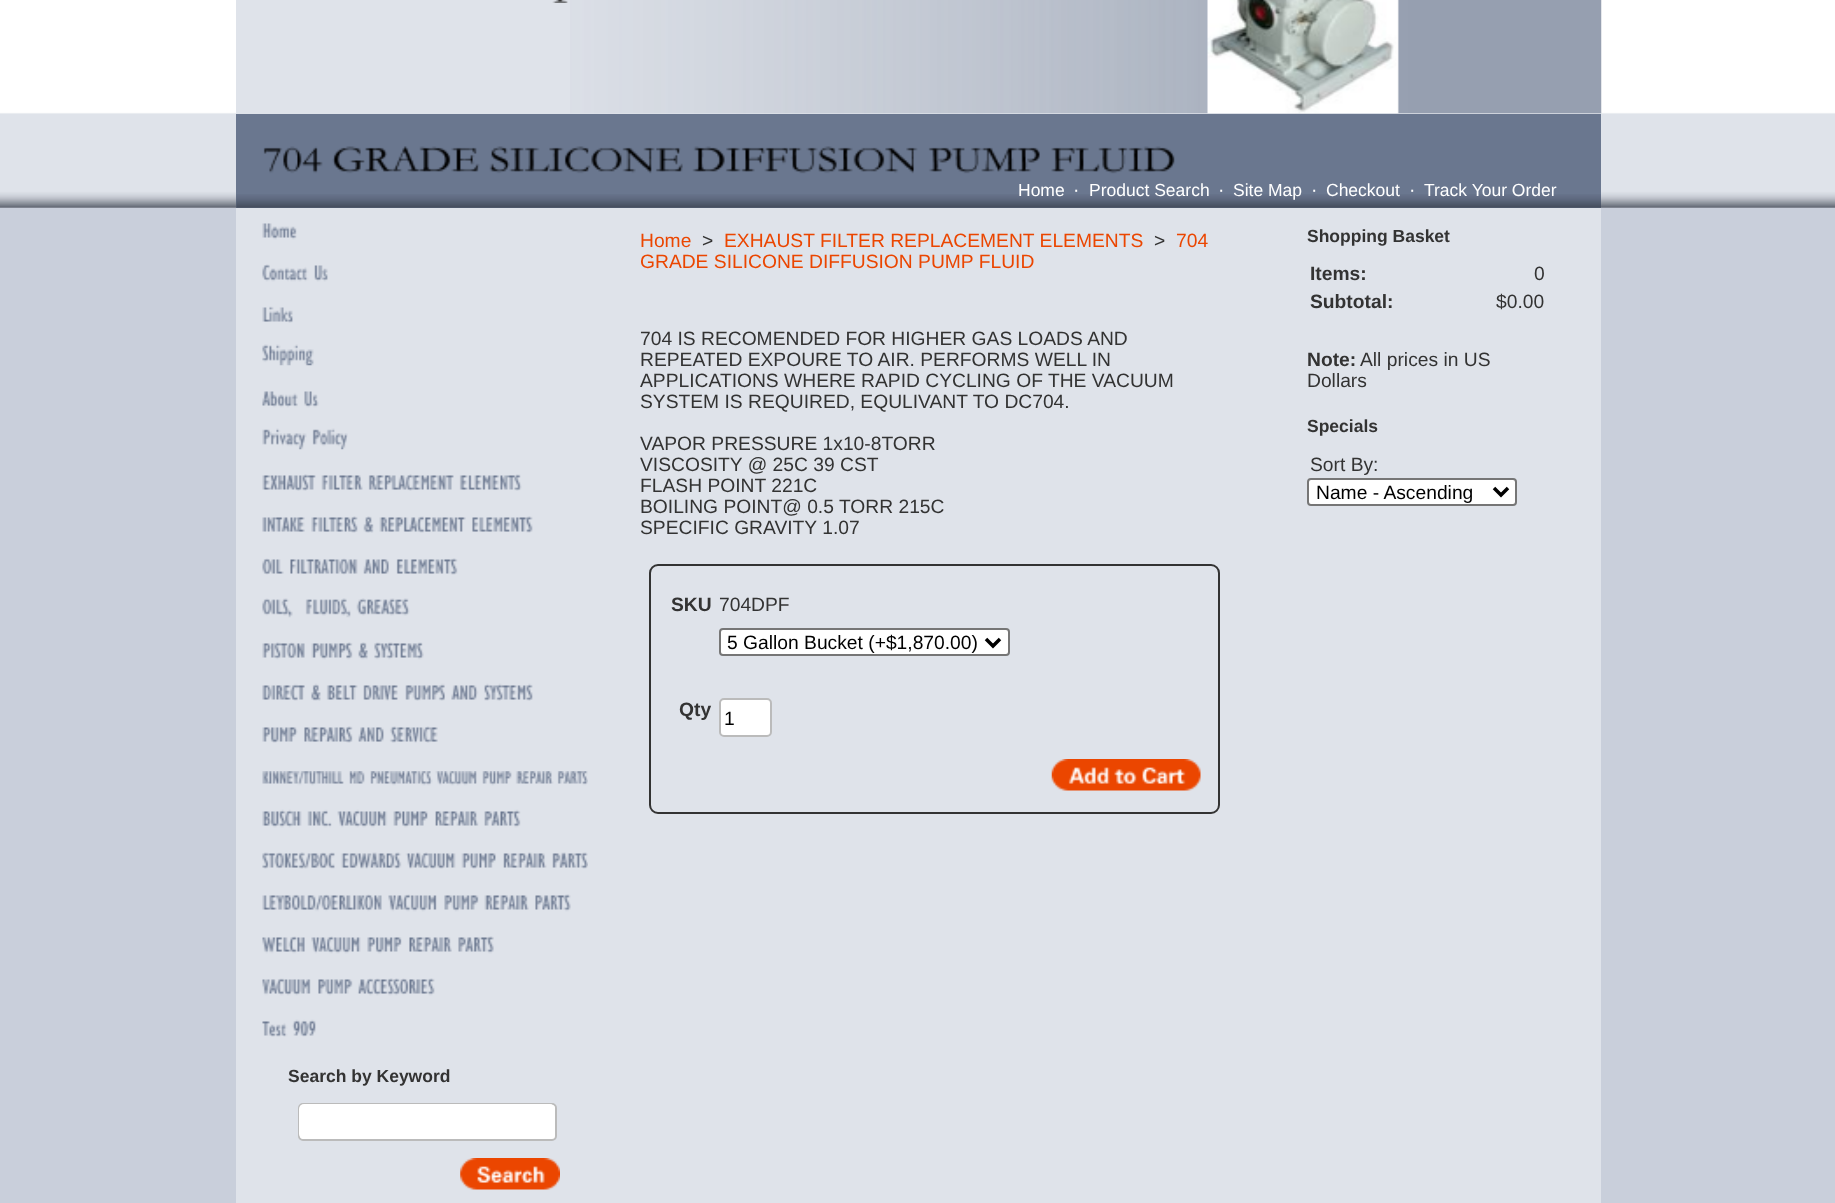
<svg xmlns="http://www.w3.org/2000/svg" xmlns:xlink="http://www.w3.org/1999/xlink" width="1835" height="1203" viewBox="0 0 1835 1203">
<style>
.cls-1{font:17.5px Liberation Sans;fill:#ffffff}
.cls-2{font:19.25px Liberation Sans;fill:#ffffff}
.cls-3{font:19.25px Liberation Sans;fill:#eb4600}
.cls-4{font:19.25px Liberation Sans;fill:#333333}
.cls-5{font:bold 19.25px Liberation Sans;fill:#333333}
.cls-6{font:19.25px Liberation Sans;fill:#000000}
.cls-7{font:bold 17.5px Liberation Sans;fill:#333333}
</style>
<rect width="100%" height="100%" fill="#c9cfdb"/>
<image xlink:href="image0.png" x="0" y="0" width="1835" height="208"/>
<rect fill="#dfe3ea" x="236" y="0" width="1365" height="114"/>
<image xlink:href="image1.png" x="570" y="0" width="1032" height="114"/>
<image xlink:href="image2.png" x="552" y="0" width="16" height="3"/>
<image xlink:href="image3.png" x="1207" y="0" width="192" height="114"/>
<rect fill="#6a778f" x="236" y="114" width="1365" height="94"/>
<image xlink:href="image4.png" x="236" y="194" width="1365" height="14"/>
<image xlink:href="image5.png" x="263" y="146" width="912" height="28"/>
<rect fill="#dfe3ea" x="614" y="208" width="987" height="995"/>
<rect fill="none" stroke="#333333" stroke-width="2" x="650" y="565" width="569" height="248" rx="8"/>
<rect fill="#ffffff" stroke="#767676" stroke-width="2" x="720" y="629" width="289" height="26" rx="3"/>
<path fill="none" stroke="#000000" stroke-width="3.5" d="M986 639L993 646L1000 639"/>
<rect fill="#ffffff" stroke="#bbbbbb" stroke-width="2" x="720" y="699" width="51" height="37" rx="4"/>
<image xlink:href="image6.png" x="1051" y="759" width="150" height="32"/>
<rect fill="#ffffff" stroke="#767676" stroke-width="2" x="1308" y="479" width="208" height="26" rx="3"/>
<path fill="none" stroke="#000000" stroke-width="3.5" d="M1494 488L1501 495L1508 488"/>
<rect fill="#dfe3ea" x="236" y="208" width="378" height="995"/>
<image xlink:href="image7.png" x="262" y="223" width="35" height="17"/>
<image xlink:href="image8.png" x="262" y="264" width="66" height="18"/>
<image xlink:href="image9.png" x="262" y="306" width="31" height="17"/>
<image xlink:href="image10.png" x="262" y="344" width="52" height="22"/>
<image xlink:href="image11.png" x="262" y="391" width="57" height="17"/>
<image xlink:href="image12.png" x="262" y="428" width="86" height="22"/>
<image xlink:href="image13.png" x="262" y="474" width="260" height="17"/>
<image xlink:href="image14.png" x="262" y="516" width="271" height="17"/>
<image xlink:href="image15.png" x="262" y="558" width="196" height="17"/>
<image xlink:href="image16.png" x="262" y="598" width="148" height="20"/>
<image xlink:href="image17.png" x="262" y="642" width="162" height="18"/>
<image xlink:href="image18.png" x="262" y="683" width="271" height="18"/>
<image xlink:href="image19.png" x="262" y="726" width="176" height="17"/>
<image xlink:href="image20.png" x="262" y="771" width="326" height="15"/>
<image xlink:href="image21.png" x="262" y="809" width="259" height="19"/>
<image xlink:href="image22.png" x="262" y="852" width="326" height="17"/>
<image xlink:href="image23.png" x="262" y="894" width="309" height="18"/>
<image xlink:href="image24.png" x="262" y="936" width="232" height="18"/>
<image xlink:href="image25.png" x="262" y="978" width="173" height="18"/>
<image xlink:href="image26.png" x="262" y="1019" width="54" height="18"/>
<rect fill="#ffffff" stroke="#bbbbbb" stroke-width="2" x="299" y="1104" width="257" height="36" rx="4"/>
<rect fill="#ffffff" x="299" y="1104" width="256" height="35" rx="5"/>
<image xlink:href="image27.png" x="460" y="1158" width="100" height="32"/>
<text class="cls-1" x="1018" y="196">Home</text>
<text class="cls-2" x="1073" y="196">·</text>
<text class="cls-1" x="1089" y="196">Product Search</text>
<text class="cls-2" x="1218" y="196">·</text>
<text class="cls-1" x="1233" y="196">Site Map</text>
<text class="cls-2" x="1311" y="196">·</text>
<text class="cls-1" x="1326" y="196">Checkout</text>
<text class="cls-2" x="1409" y="196">·</text>
<text class="cls-1" x="1424" y="196">Track Your Order</text>
<text class="cls-3" x="640" y="247">Home</text>
<text class="cls-4" x="702" y="247">&gt;</text>
<text class="cls-3" x="724" y="247">EXHAUST FILTER REPLACEMENT ELEMENTS</text>
<text class="cls-4" x="1154" y="247">&gt;</text>
<text class="cls-3" x="1176" y="247">704</text>
<text class="cls-3" x="640" y="268">GRADE SILICONE DIFFUSION PUMP FLUID</text>
<text class="cls-4"><tspan x="640" y="345">704 IS RECOMENDED FOR HIGHER GAS LOADS AND</tspan><tspan x="640" y="366">REPEATED EXPOURE TO AIR. PERFORMS WELL IN</tspan><tspan x="640" y="387">APPLICATIONS WHERE RAPID CYCLING OF THE VACUUM</tspan><tspan x="640" y="408">SYSTEM IS REQUIRED, EQULIVANT TO DC704.</tspan></text>
<text class="cls-4"><tspan x="640" y="450">VAPOR PRESSURE 1x10-8TORR</tspan><tspan x="640" y="471">VISCOSITY @ 25C 39 CST</tspan><tspan x="640" y="492">FLASH POINT 221C</tspan><tspan x="640" y="513">BOILING POINT@ 0.5 TORR 215C</tspan><tspan x="640" y="534">SPECIFIC GRAVITY 1.07</tspan></text>
<text class="cls-5" x="671" y="611">SKU</text>
<text class="cls-4" x="719" y="611">704DPF</text>
<text class="cls-6" x="727" y="649">5 Gallon Bucket (+$1,870.00)</text>
<text class="cls-5" x="679" y="716">Qty</text>
<text class="cls-6" x="724" y="725">1</text>
<text class="cls-7" x="1307" y="242">Shopping Basket</text>
<text class="cls-5" x="1310" y="280">Items:</text>
<text class="cls-4" x="1534" y="280">0</text>
<text class="cls-5" x="1310" y="308">Subtotal:</text>
<text class="cls-4" x="1496" y="308">$0.00</text>
<text class="cls-5" x="1307" y="366">Note:</text>
<text class="cls-4" x="1360" y="366">All prices in US</text>
<text class="cls-4" x="1307" y="387">Dollars</text>
<text class="cls-7" x="1307" y="432">Specials</text>
<text class="cls-4" x="1310" y="471">Sort By:</text>
<text class="cls-6" x="1316" y="499">Name - Ascending</text>
<text class="cls-7" x="288" y="1082">Search by Keyword</text>
</svg>
